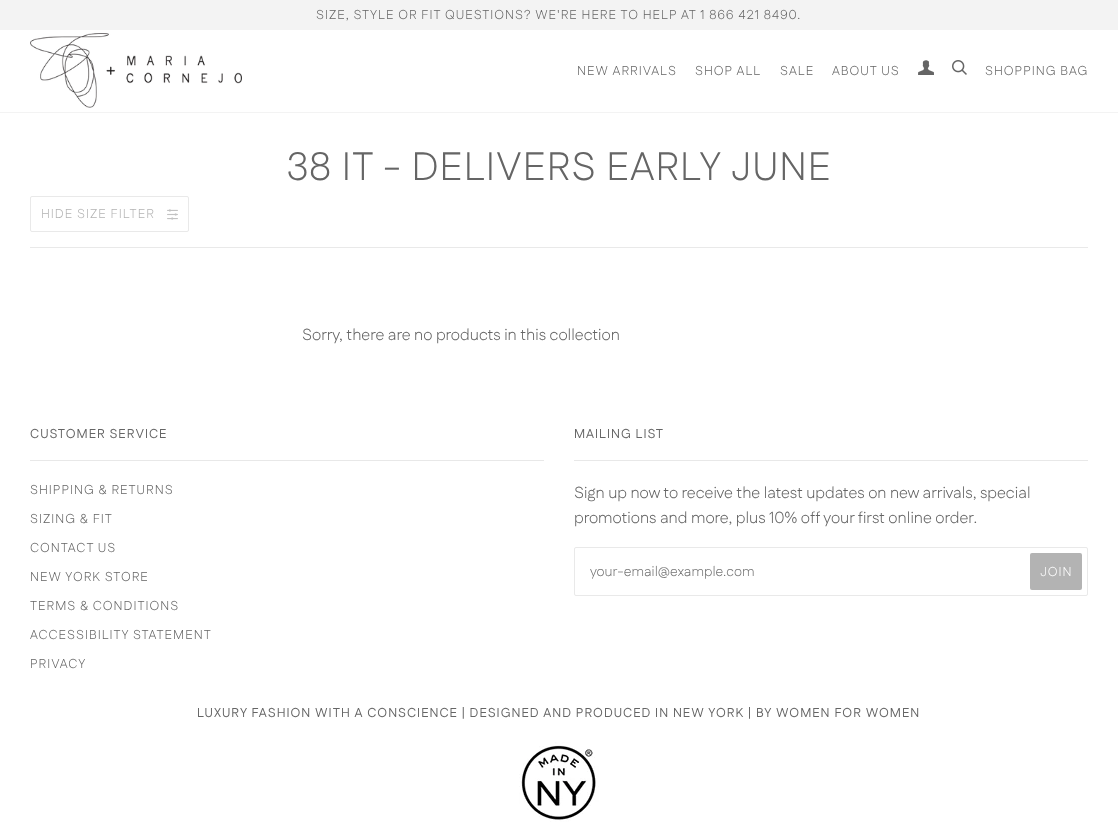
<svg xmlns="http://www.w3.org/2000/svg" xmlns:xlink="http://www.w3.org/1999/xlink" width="1118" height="828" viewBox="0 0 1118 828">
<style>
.cls-1{font:300 12.88px Fustat;letter-spacing:1px;fill:#656565}
.cls-2{font:300 39.6px Fustat;letter-spacing:1px;fill:#656565}
.cls-3{font:300 12.88px Fustat;letter-spacing:1px;fill:#b3b3b3}
.cls-4{font:300 16.1px Fustat;fill:#656565}
.cls-5{font:12.88px Fustat;letter-spacing:1px;fill:#656565}
.cls-6{font:300 14px Fustat;fill:#757575}
.cls-7{font:300 12.88px Fustat;letter-spacing:1px;fill:#ffffff}
</style>
<rect width="100%" height="100%" fill="#ffffff"/>
<rect fill="#f3f3f3" x="0" y="0" width="1118" height="30"/>
<rect fill="#f3f3f3" x="0" y="112" width="1118" height="1"/>
<image xlink:href="image0.png" x="30" y="33" width="212" height="75"/>
<image xlink:href="image1.png" x="918" y="60" width="16" height="15"/>
<image xlink:href="image2.png" x="952" y="60" width="15" height="15"/>
<rect fill="none" stroke="#e9e9e9" x="30.5" y="196.5" width="158" height="35" rx="1.5"/>
<image xlink:href="image3.png" x="167" y="209" width="11" height="11"/>
<rect fill="#e9e9e9" x="30" y="247" width="1058" height="1"/>
<rect fill="#e8e8e8" x="30" y="460" width="514" height="1"/>
<rect fill="#e8e8e8" x="574" y="460" width="514" height="1"/>
<rect fill="none" stroke="#e9e9e9" x="574.5" y="547.5" width="513" height="48" rx="1.5"/>
<rect fill="#b3b3b3" x="1030" y="553" width="52" height="37" rx="2"/>
<image xlink:href="image4.png" x="519" y="742" width="80" height="80"/>
<text class="cls-1" x="316" y="19">SIZE, STYLE OR FIT QUESTIONS? WE'RE HERE TO HELP AT 1 866 421 8490.</text>
<text class="cls-1" x="577" y="75">NEW ARRIVALS</text>
<text class="cls-1" x="695" y="75">SHOP ALL</text>
<text class="cls-1" x="780" y="75">SALE</text>
<text class="cls-1" x="832" y="75">ABOUT US</text>
<text class="cls-1" x="985" y="75">SHOPPING BAG</text>
<text class="cls-2" x="286" y="180">38 IT - DELIVERS EARLY JUNE</text>
<text class="cls-3" x="41" y="218">HIDE SIZE FILTER</text>
<text class="cls-4" x="302" y="340">Sorry, there are no products in this collection</text>
<text class="cls-5" x="30" y="438">CUSTOMER SERVICE</text>
<text class="cls-1" x="30" y="494">SHIPPING &amp; RETURNS</text>
<text class="cls-1" x="30" y="523">SIZING &amp; FIT</text>
<text class="cls-1" x="30" y="552">CONTACT US</text>
<text class="cls-1" x="30" y="581">NEW YORK STORE</text>
<text class="cls-1" x="30" y="610">TERMS &amp; CONDITIONS</text>
<text class="cls-1" x="30" y="639">ACCESSIBILITY STATEMENT</text>
<text class="cls-1" x="30" y="668">PRIVACY</text>
<text class="cls-5" x="574" y="438">MAILING LIST</text>
<text class="cls-4"><tspan x="574" y="498">Sign up now to receive the latest updates on new arrivals, special</tspan><tspan x="574" y="523">promotions and more, plus 10% off your first online order.</tspan></text>
<text class="cls-6" x="590" y="576">your-email@example.com</text>
<text class="cls-7" x="1040" y="576">JOIN</text>
<text class="cls-5" x="197" y="717">LUXURY FASHION WITH A CONSCIENCE | DESIGNED AND PRODUCED IN NEW YORK | BY WOMEN FOR WOMEN</text>
</svg>
